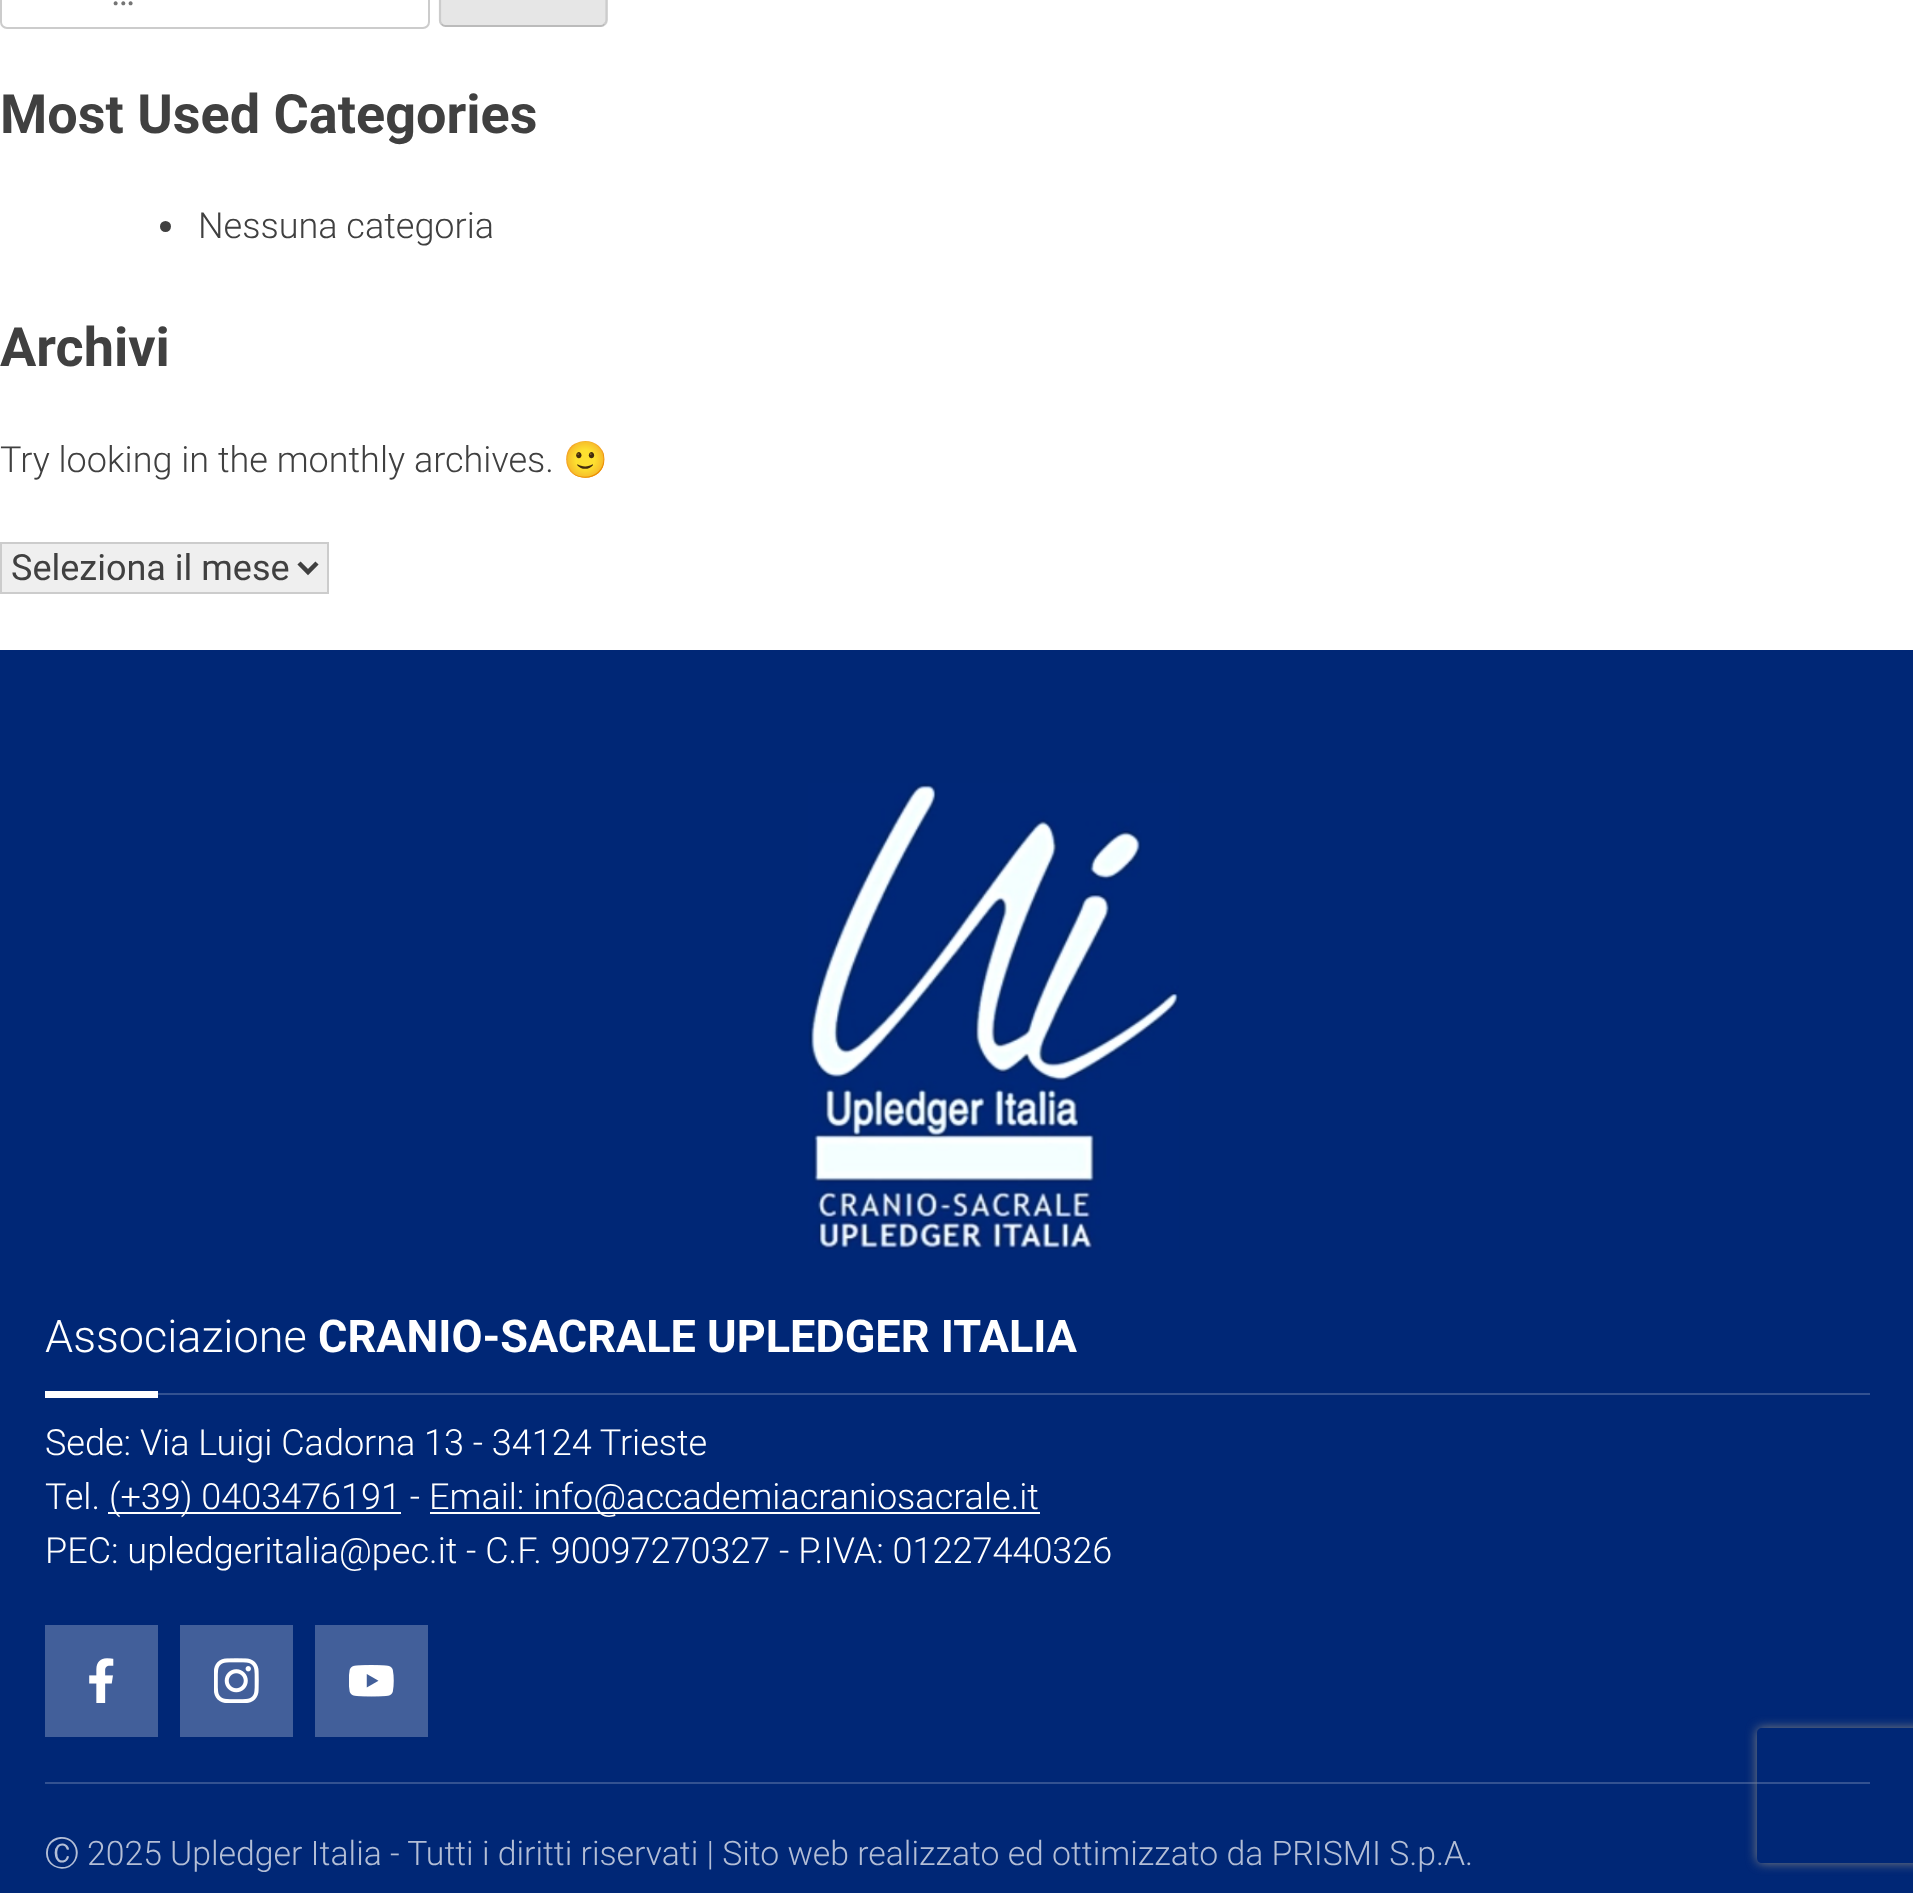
<svg xmlns="http://www.w3.org/2000/svg" xmlns:xlink="http://www.w3.org/1999/xlink" width="1913" height="1893" viewBox="0 0 1913 1893">
<style>
.cls-1{font:36px Roboto;fill:#757575}
.cls-2{font:bold 54px Roboto;fill:#404040}
.cls-3{font:300 36px Roboto;fill:#404040}
.cls-4{font:36px Noto Color Emoji;fill:#404040}
.cls-5{font:36px Roboto;fill:#404040}
.cls-6{font:300 45px Roboto;fill:#ffffff}
.cls-7{font:bold 45px Roboto;fill:#ffffff}
.cls-8{font:300 36px Roboto;fill:#ffffff}
.cls-9{font:500 33.75px WenQuanYi Zen Hei;fill:#b3bed6}
.cls-10{font:300 33.75px Roboto;fill:#b3bed6}
</style>
<defs>
<clipPath id="clip1"><path d="M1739 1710H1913V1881H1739ZM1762 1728H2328C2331 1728 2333 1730 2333 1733V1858C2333 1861 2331 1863 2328 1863H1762C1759 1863 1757 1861 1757 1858V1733C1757 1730 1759 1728 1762 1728Z" clip-rule="evenodd"/></clipPath>
</defs>
<rect width="100%" height="100%" fill="#ffffff"/>
<rect fill="none" stroke="#cccccc" stroke-width="2" x="1" y="-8" width="428" height="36" rx="6"/>
<rect fill="#e6e6e6" x="439" y="-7" width="169" height="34" rx="7"/>
<path fill="none" stroke="#bbbbbb" stroke-width="2.2" d="M604.5 24C603.5 25.5 602 26 601 26H445.5C444 26 442.5 25.5 441.5 24"/>
<path fill="none" stroke="#cccccc" stroke-width="2.2" d="M441.5 24C440.5 23 440 21.5 440 20.5V-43C440-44 440.5-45.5 441.5-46.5C442.5-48 444-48.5 445.5-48.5H601C602-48.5 603.5-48 604.5-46.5C606-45.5 606.5-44 606.5-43V20C606.5 21.5 606 23 604.5 24"/>
<circle fill="#404040" cx="165.5" cy="226.5" r="5.5"/>
<rect fill="#efefef" stroke="#cccccc" stroke-width="2" x="1" y="543" width="327" height="50"/>
<path fill="none" stroke="#404040" stroke-width="4.5" d="M299 563L308 572L317 563"/>
<rect fill="#002776" x="0" y="650" width="1913" height="1243"/>
<rect fill="#335291" x="45" y="1782" width="1825" height="2"/>
<image xlink:href="image0.png" x="808" y="783" width="371" height="467"/>
<rect fill="#335291" x="158" y="1393" width="1712" height="2"/>
<rect fill="#ffffff" x="45" y="1391" width="113" height="7"/>
<rect fill="#ffffff" x="108" y="1512" width="293" height="2"/>
<rect fill="#ffffff" x="430" y="1512" width="610" height="2"/>
<rect fill="#425f9a" x="45" y="1625" width="113" height="112"/>
<image xlink:href="image1.png" x="89" y="1658" width="25" height="45"/>
<rect fill="#425f9a" x="180" y="1625" width="113" height="112"/>
<image xlink:href="image2.png" x="214" y="1658" width="45" height="45"/>
<rect fill="#425f9a" x="315" y="1625" width="113" height="112"/>
<image xlink:href="image3.png" x="349" y="1665" width="45" height="32"/>
<g clip-path="url(#clip1)">
<rect fill="#808080" filter="blur(5.5px)" x="1757" y="1728" width="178" height="135" rx="5"/>
</g>
<text class="cls-1" x="111" y="5">…</text>
<text class="cls-2" x="0" y="133">Most Used Categories</text>
<text class="cls-3" x="198" y="238">Nessuna categoria</text>
<text class="cls-2" x="0" y="366">Archivi</text>
<text class="cls-3" x="0" y="472">Try looking in the monthly archives.</text>
<text class="cls-4" x="563" y="472">🙂</text>
<text class="cls-5" x="11" y="580">Seleziona il mese</text>
<text class="cls-6" x="45" y="1352">Associazione</text>
<text class="cls-7" x="318" y="1352">CRANIO-SACRALE UPLEDGER ITALIA</text>
<text class="cls-8"><tspan x="45" y="1455">Sede: Via Luigi Cadorna 13 - 34124 Trieste</tspan><tspan x="45" y="1509">Tel.</tspan></text>
<text class="cls-8" x="109" y="1509">(+39) 0403476191 -</text>
<text class="cls-8" x="429" y="1509">Email: info@accademiacraniosacrale.it</text>
<text class="cls-8" x="45" y="1563">PEC: upledgeritalia@pec.it - C.F. 90097270327 - P.IVA: 01227440326</text>
<text class="cls-9" x="45" y="1865">Ⓒ</text>
<text class="cls-10" x="87" y="1865">2025 Upledger Italia - Tutti i diritti riservati | Sito web realizzato ed ottimizzato da PRISMI S.p.A.</text>
</svg>
